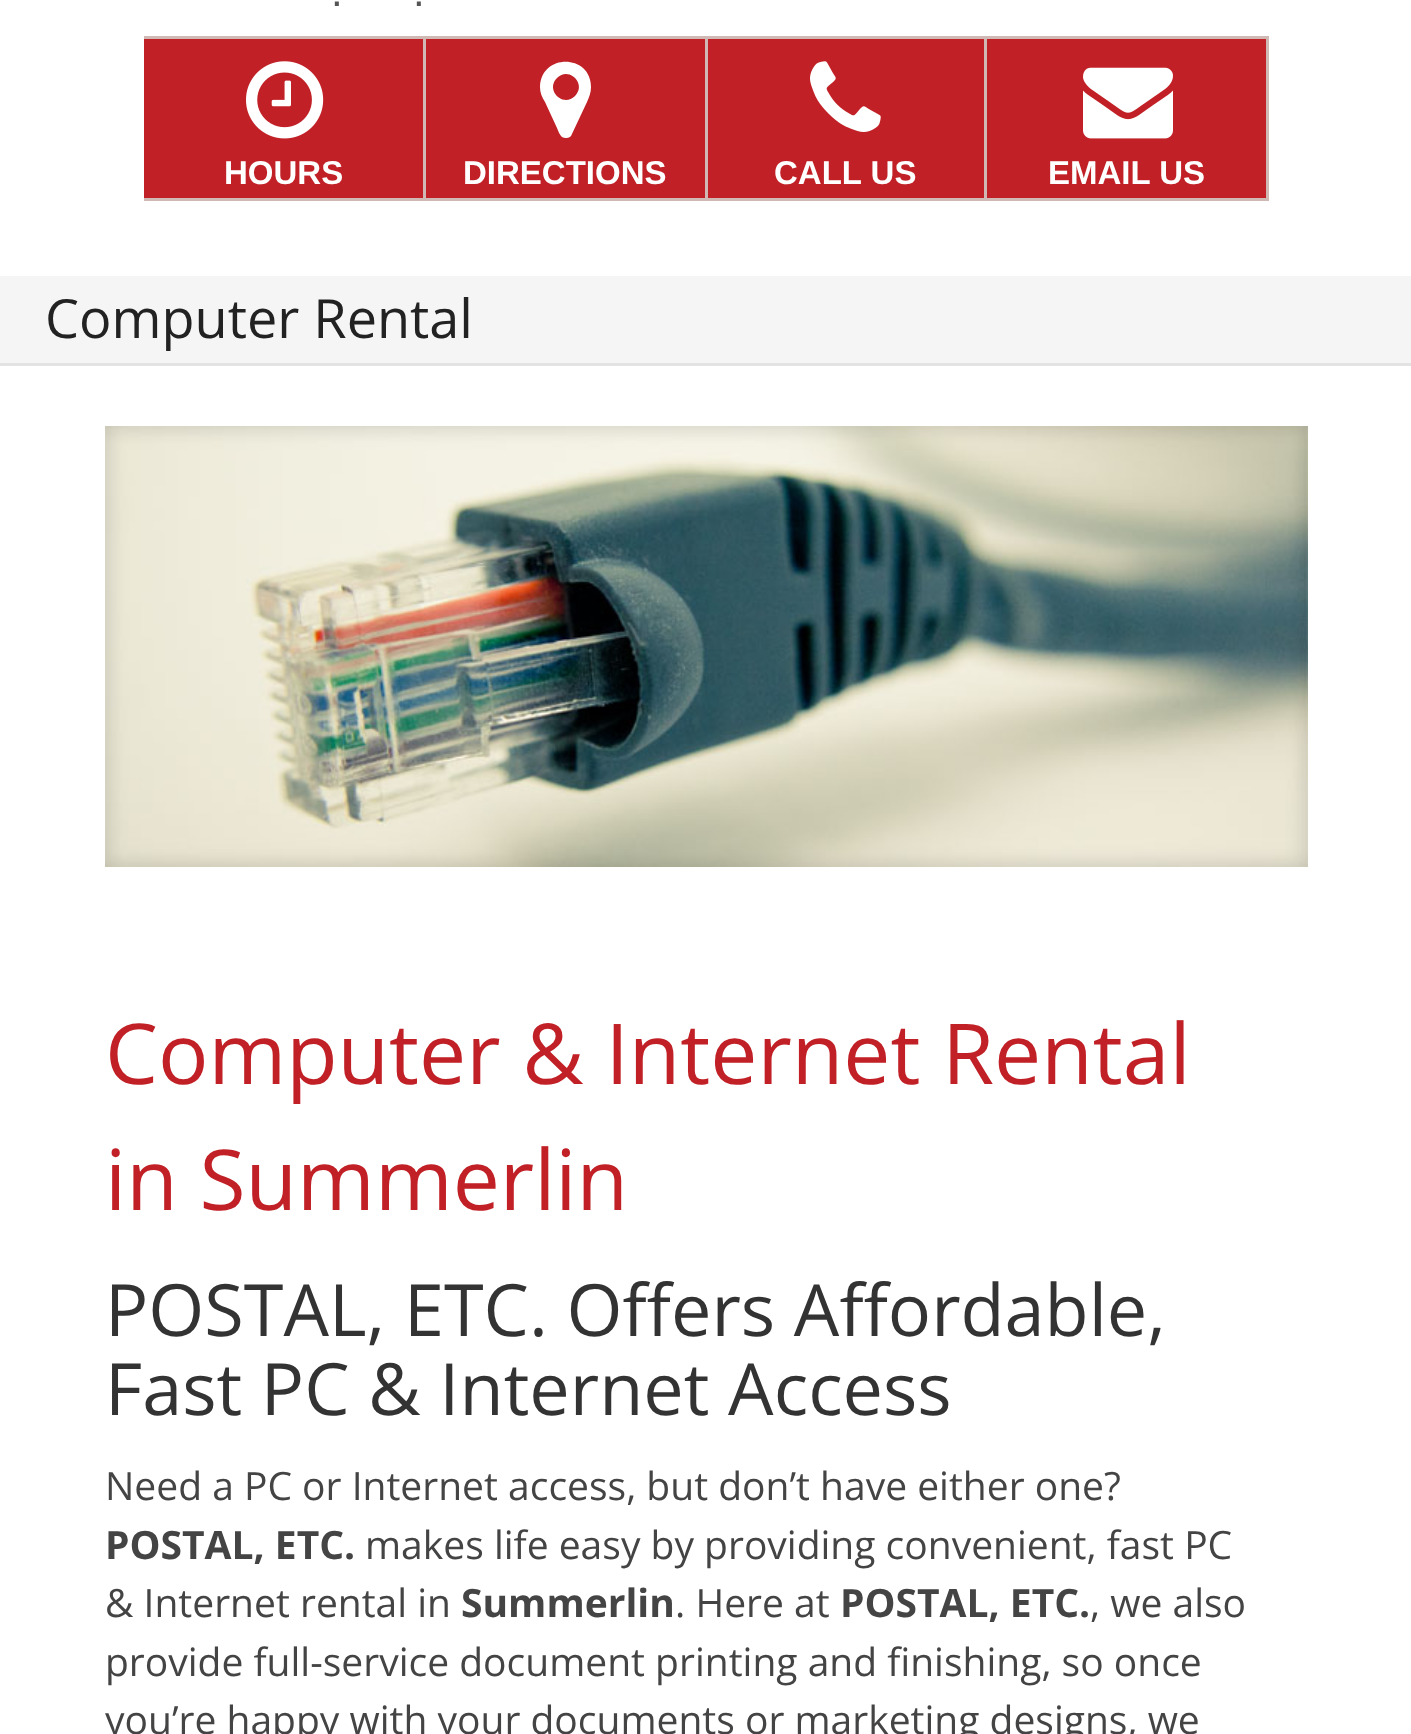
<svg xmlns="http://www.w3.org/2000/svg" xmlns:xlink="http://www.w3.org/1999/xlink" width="1411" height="1734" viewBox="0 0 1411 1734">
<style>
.cls-1{font:42px Liberation Sans;fill:#555555}
.cls-2{font:bold 33px Liberation Sans;fill:#ffffff}
.cls-3{font:54px Open Sans;fill:#222222}
.cls-4{font:84px Open Sans;fill:#c12026}
.cls-5{font:72px Open Sans;fill:#333333}
.cls-6{font:39px Open Sans;fill:#444444}
.cls-7{font:bold 39px Open Sans;fill:#444444}
</style>
<rect width="100%" height="100%" fill="#ffffff"/>
<rect fill="#c12026" x="144" y="39" width="279" height="159"/>
<rect fill="#d0b8b4" x="144" y="36" width="1125" height="3"/>
<rect fill="#d0b8b4" x="423" y="36" width="3" height="165"/>
<rect fill="#d0b8b4" x="144" y="198" width="282" height="3"/>
<image xlink:href="image0.png" x="246" y="61" width="78" height="78"/>
<rect fill="#c12026" x="426" y="39" width="279" height="159"/>
<rect fill="#d0b8b4" x="705" y="36" width="3" height="165"/>
<rect fill="#d0b8b4" x="426" y="198" width="282" height="3"/>
<path fill="#ffffff" d="M575 96C587 84 569 66 557 78C545 90 563 108 575 96ZM591 87C591 93 589 97 587 102L571 136C570 137 568 138 567 138C561 139 559 133 557 128L545 102C542 97 540 93 540 87C541 53 591 54 591 87Z"/>
<rect fill="#c12026" x="708" y="39" width="276" height="159"/>
<rect fill="#d0b8b4" x="984" y="36" width="3" height="165"/>
<rect fill="#d0b8b4" x="708" y="198" width="279" height="3"/>
<image xlink:href="image1.png" x="810" y="61" width="71" height="71"/>
<rect fill="#c12026" x="987" y="39" width="279" height="159"/>
<rect fill="#d0b8b4" x="1266" y="36" width="3" height="165"/>
<rect fill="#d0b8b4" x="987" y="198" width="282" height="3"/>
<image xlink:href="image2.png" x="1083" y="67" width="90" height="72"/>
<rect fill="#f5f5f5" x="0" y="276" width="1411" height="87"/>
<rect fill="#e3e3e3" x="0" y="363" width="1411" height="3"/>
<image xlink:href="image3.png" x="105" y="426" width="1203" height="441"/>
<text class="cls-1" x="331" y="6">.</text>
<text class="cls-1" x="413" y="6">.</text>
<text class="cls-2" x="224" y="184">HOURS</text>
<text class="cls-2" x="463" y="184">DIRECTIONS</text>
<text class="cls-2" x="774" y="184">CALL US</text>
<text class="cls-2" x="1048" y="184">EMAIL US</text>
<text class="cls-3" x="45" y="338">Computer Rental</text>
<text class="cls-4"><tspan x="105" y="1084">Computer &amp; Internet Rental</tspan><tspan x="105" y="1210">in Summerlin</tspan></text>
<text class="cls-5"><tspan x="105" y="1336">POSTAL, ETC. Offers Affordable,</tspan><tspan x="105" y="1415">Fast PC &amp; Internet Access</tspan></text>
<text class="cls-6" x="105" y="1500">Need a PC or Internet access, but don’t have either one?</text>
<text class="cls-7" x="105" y="1559">POSTAL, ETC.</text>
<text class="cls-6" x="365" y="1559">makes life easy by providing convenient, fast PC</text>
<text class="cls-6" x="105" y="1617">&amp; Internet rental in</text>
<text class="cls-7" x="461" y="1617">Summerlin</text>
<text class="cls-6" x="675" y="1617">. Here at</text>
<text class="cls-7" x="840" y="1617">POSTAL, ETC.</text>
<text class="cls-6" x="1090" y="1617">, we also</text>
<text class="cls-6"><tspan x="105" y="1676">provide full-service document printing and finishing, so once</tspan><tspan x="105" y="1734">you’re happy with your documents or marketing designs, we</tspan></text>
</svg>
